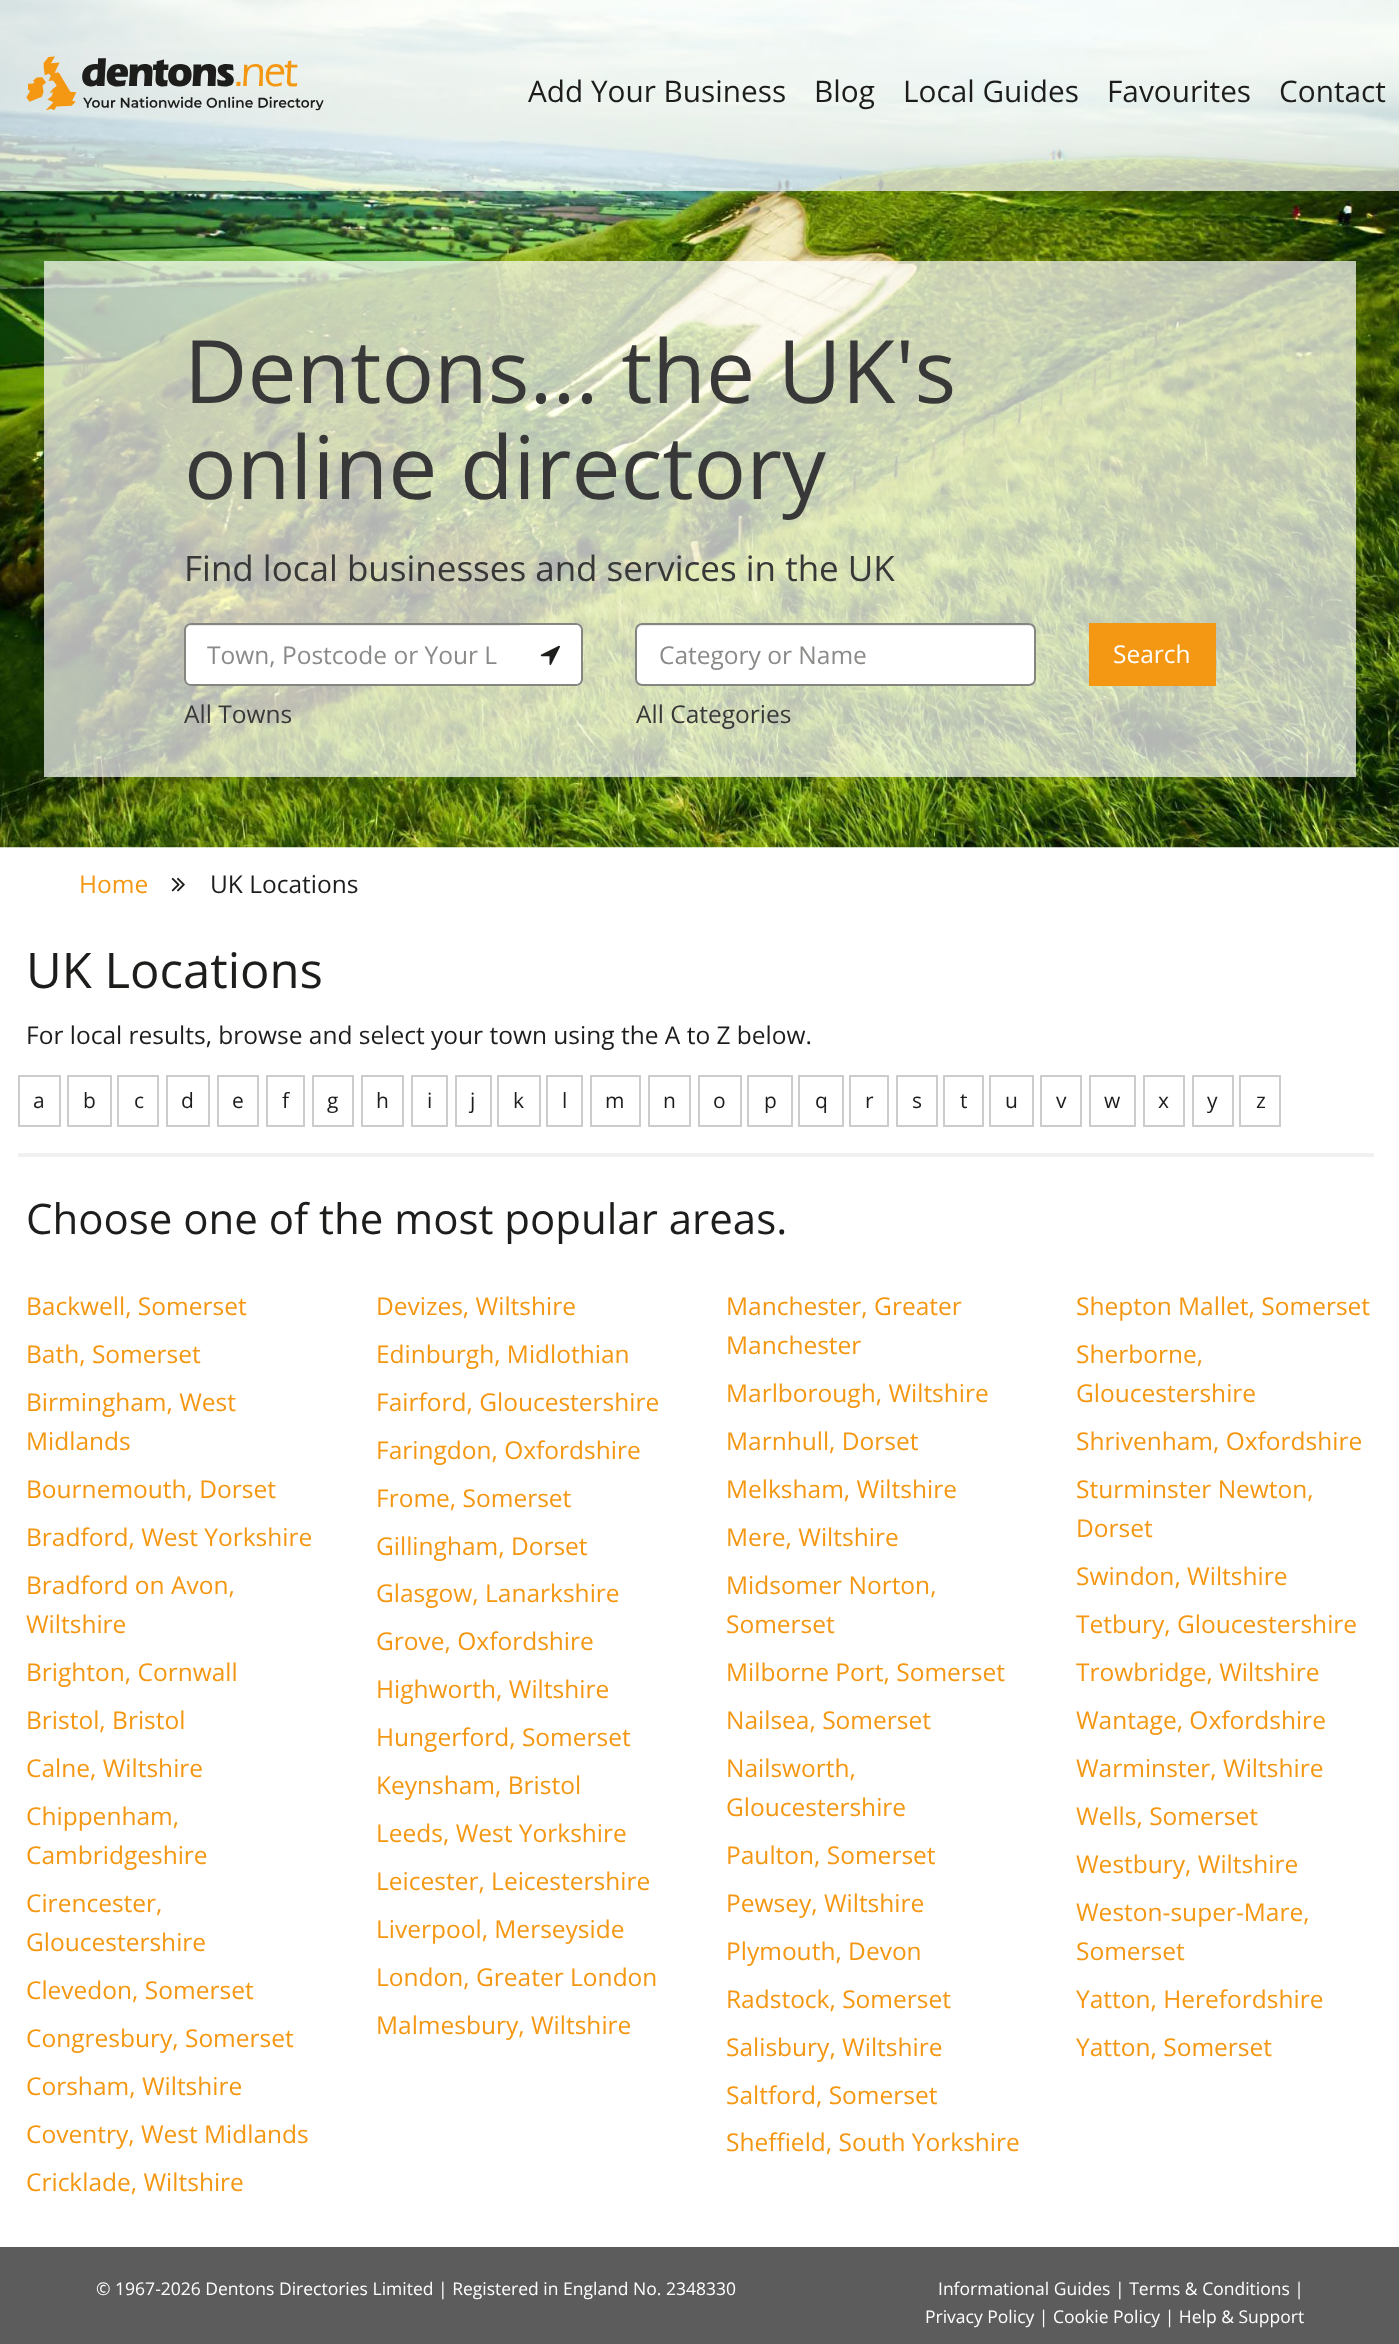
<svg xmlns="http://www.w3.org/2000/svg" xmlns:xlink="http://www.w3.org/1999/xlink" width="1399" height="2344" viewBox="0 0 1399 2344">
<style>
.cls-1{font:29.75px Open Sans;fill:#1d1d1c}
.cls-2{font:87.5px Open Sans;fill:#383838}
.cls-3{font:35px Open Sans;fill:#383838}
.cls-4{font:24.5px Open Sans;fill:#8b8a88}
.cls-5{font:24.5px Open Sans;fill:#383838}
.cls-6{font:24.5px Open Sans;fill:#ffffff}
.cls-7{font:24.5px Open Sans;fill:#f49712}
.cls-8{font:24.5px Open Sans;fill:#1d1d1c}
.cls-9{font:49px Open Sans;fill:#1d1d1c}
.cls-10{font:21px Open Sans;fill:#1d1d1c}
.cls-11{font:42px Open Sans;fill:#1d1d1c}
.cls-12{font:17.5px Open Sans;fill:#ffffff}
</style>
<defs>
<clipPath id="clip1"><rect x="207" y="639" width="292" height="33"/></clipPath>
</defs>
<rect width="100%" height="100%" fill="#ffffff"/>
<image xlink:href="image0.png" x="0" y="0" width="1399" height="848"/>
<rect fill="#ffffff" fill-opacity="0.7" x="0" y="0" width="1399" height="191"/>
<image xlink:href="image1.png" x="26" y="56" width="298" height="55"/>
<rect fill="#ffffff" fill-opacity="0.7" x="44" y="261" width="1312" height="516"/>
<path fill="#ffffff" d="M191 623H520V686H191C187 686 184 683 184 679V630C184 626 187 623 191 623Z"/>
<path fill="#ececec" d="M191 626H520V625H191C188 625 186 627 186 630V632C186 629 188 626 191 626Z"/>
<path fill="#858580" fill-rule="evenodd" d="M191 623H520V686H191C187 686 184 683 184 679V630C184 626 187 623 191 623ZM191 625H520V684H191C188 684 186 682 186 679V630C186 627 188 625 191 625Z"/>
<path fill="#ffffff" d="M520 623H576C580 623 583 626 583 630V679C583 683 580 686 576 686H520Z"/>
<path fill="#858580" fill-rule="evenodd" d="M520 623H576C580 623 583 626 583 630V679C583 683 580 686 576 686H520ZM520 625H576C579 625 581 627 581 630V679C581 682 579 684 576 684H520Z"/>
<image xlink:href="image2.png" x="540" y="645" width="20" height="20"/>
<rect fill="#ffffff" x="635" y="623" width="401" height="63" rx="7"/>
<path fill="#ececec" d="M642 626H1029C1032 626 1034 629 1034 632V630C1034 627 1032 625 1029 625H642C639 625 637 627 637 630V632C637 629 639 626 642 626Z"/>
<rect fill="none" stroke="#858580" stroke-width="2" x="636" y="624" width="399" height="61" rx="6"/>
<rect fill="#f49712" x="1089" y="623" width="127" height="63"/>
<image xlink:href="image3.png" x="171" y="877" width="14" height="15"/>
<rect fill="#f1f1f1" x="18" y="1153" width="1356" height="4"/>
<rect fill="none" stroke="#cccccc" stroke-width="2" x="19" y="1076" width="41" height="50"/>
<rect fill="none" stroke="#cccccc" stroke-width="2" x="68" y="1076" width="43" height="50"/>
<rect fill="none" stroke="#cccccc" stroke-width="2" x="118" y="1076" width="40" height="50"/>
<rect fill="none" stroke="#cccccc" stroke-width="2" x="167" y="1076" width="42" height="50"/>
<rect fill="none" stroke="#cccccc" stroke-width="2" x="218" y="1076" width="40" height="50"/>
<rect fill="none" stroke="#cccccc" stroke-width="2" x="267" y="1076" width="37" height="50"/>
<rect fill="none" stroke="#cccccc" stroke-width="2" x="313" y="1076" width="40" height="50"/>
<rect fill="none" stroke="#cccccc" stroke-width="2" x="362" y="1076" width="41" height="50"/>
<rect fill="none" stroke="#cccccc" stroke-width="2" x="412" y="1076" width="35" height="50"/>
<rect fill="none" stroke="#cccccc" stroke-width="2" x="456" y="1076" width="35" height="50"/>
<rect fill="none" stroke="#cccccc" stroke-width="2" x="498" y="1076" width="42" height="50"/>
<rect fill="none" stroke="#cccccc" stroke-width="2" x="547" y="1076" width="35" height="50"/>
<rect fill="none" stroke="#cccccc" stroke-width="2" x="591" y="1076" width="49" height="50"/>
<rect fill="none" stroke="#cccccc" stroke-width="2" x="649" y="1076" width="41" height="50"/>
<rect fill="none" stroke="#cccccc" stroke-width="2" x="699" y="1076" width="42" height="50"/>
<rect fill="none" stroke="#cccccc" stroke-width="2" x="748" y="1076" width="44" height="50"/>
<rect fill="none" stroke="#cccccc" stroke-width="2" x="799" y="1076" width="44" height="50"/>
<rect fill="none" stroke="#cccccc" stroke-width="2" x="850" y="1076" width="38" height="50"/>
<rect fill="none" stroke="#cccccc" stroke-width="2" x="897" y="1076" width="40" height="50"/>
<rect fill="none" stroke="#cccccc" stroke-width="2" x="944" y="1076" width="39" height="50"/>
<rect fill="none" stroke="#cccccc" stroke-width="2" x="990" y="1076" width="43" height="50"/>
<rect fill="none" stroke="#cccccc" stroke-width="2" x="1041" y="1076" width="40" height="50"/>
<rect fill="none" stroke="#cccccc" stroke-width="2" x="1090" y="1076" width="45" height="50"/>
<rect fill="none" stroke="#cccccc" stroke-width="2" x="1144" y="1076" width="40" height="50"/>
<rect fill="none" stroke="#cccccc" stroke-width="2" x="1193" y="1076" width="40" height="50"/>
<rect fill="none" stroke="#cccccc" stroke-width="2" x="1240" y="1076" width="40" height="50"/>
<rect fill="#5c5c5c" x="0" y="2247" width="1399" height="97"/>
<text class="cls-1" x="528" y="102">Add Your Business</text>
<text class="cls-1" x="814" y="102">Blog</text>
<text class="cls-1" x="903" y="102">Local Guides</text>
<text class="cls-1" x="1107" y="102">Favourites</text>
<text class="cls-1" x="1279" y="102">Contact</text>
<text class="cls-2"><tspan x="184" y="403">Dentons... the UK's</tspan><tspan x="184" y="499">online directory</tspan></text>
<text class="cls-3" x="184" y="581">Find local businesses and services in the UK</text>
<g clip-path="url(#clip1)">
<text class="cls-4" x="207" y="664">Town, Postcode or Your L</text>
</g>
<text class="cls-5" x="184" y="723">All Towns</text>
<text class="cls-4" x="659" y="664">Category or Name</text>
<text class="cls-5" x="636" y="723">All Categories</text>
<text class="cls-6" x="1113" y="663">Search</text>
<text class="cls-7" x="79" y="893">Home</text>
<text class="cls-8" x="210" y="893">UK Locations</text>
<text class="cls-9" x="26" y="988">UK Locations</text>
<text class="cls-8" x="26" y="1044">For local results, browse and select your town using the A to Z below.</text>
<text class="cls-10" x="33" y="1108">a</text>
<text class="cls-10" x="83" y="1108">b</text>
<text class="cls-10" x="134" y="1108">c</text>
<text class="cls-10" x="181" y="1108">d</text>
<text class="cls-10" x="232" y="1108">e</text>
<text class="cls-10" x="282" y="1108">f</text>
<text class="cls-10" x="327" y="1108">g</text>
<text class="cls-10" x="376" y="1108">h</text>
<text class="cls-10" x="427" y="1108">i</text>
<text class="cls-10" x="470" y="1108">j</text>
<text class="cls-10" x="513" y="1108">k</text>
<text class="cls-10" x="562" y="1108">l</text>
<text class="cls-10" x="605" y="1108">m</text>
<text class="cls-10" x="663" y="1108">n</text>
<text class="cls-10" x="713" y="1108">o</text>
<text class="cls-10" x="764" y="1108">p</text>
<text class="cls-10" x="815" y="1108">q</text>
<text class="cls-10" x="865" y="1108">r</text>
<text class="cls-10" x="912" y="1108">s</text>
<text class="cls-10" x="960" y="1108">t</text>
<text class="cls-10" x="1005" y="1108">u</text>
<text class="cls-10" x="1056" y="1108">v</text>
<text class="cls-10" x="1104" y="1108">w</text>
<text class="cls-10" x="1158" y="1108">x</text>
<text class="cls-10" x="1207" y="1108">y</text>
<text class="cls-10" x="1256" y="1108">z</text>
<text class="cls-11" x="26" y="1234">Choose one of the most popular areas.</text>
<text class="cls-7"><tspan x="26" y="1315">Backwell, Somerset</tspan><tspan x="26" y="1363">Bath, Somerset</tspan><tspan x="26" y="1411">Birmingham, West</tspan><tspan x="26" y="1450">Midlands</tspan><tspan x="26" y="1498">Bournemouth, Dorset</tspan><tspan x="26" y="1546">Bradford, West Yorkshire</tspan><tspan x="26" y="1594">Bradford on Avon,</tspan><tspan x="26" y="1633">Wiltshire</tspan><tspan x="26" y="1681">Brighton, Cornwall</tspan><tspan x="26" y="1729">Bristol, Bristol</tspan><tspan x="26" y="1777">Calne, Wiltshire</tspan><tspan x="26" y="1825">Chippenham,</tspan><tspan x="26" y="1864">Cambridgeshire</tspan><tspan x="26" y="1912">Cirencester,</tspan><tspan x="26" y="1951">Gloucestershire</tspan><tspan x="26" y="1999">Clevedon, Somerset</tspan><tspan x="26" y="2047">Congresbury, Somerset</tspan><tspan x="26" y="2095">Corsham, Wiltshire</tspan><tspan x="26" y="2143">Coventry, West Midlands</tspan><tspan x="26" y="2191">Cricklade, Wiltshire</tspan></text>
<text class="cls-7"><tspan x="376" y="1315">Devizes, Wiltshire</tspan><tspan x="376" y="1363">Edinburgh, Midlothian</tspan><tspan x="376" y="1411">Fairford, Gloucestershire</tspan><tspan x="376" y="1459">Faringdon, Oxfordshire</tspan><tspan x="376" y="1507">Frome, Somerset</tspan><tspan x="376" y="1555">Gillingham, Dorset</tspan><tspan x="376" y="1602">Glasgow, Lanarkshire</tspan><tspan x="376" y="1650">Grove, Oxfordshire</tspan><tspan x="376" y="1698">Highworth, Wiltshire</tspan><tspan x="376" y="1746">Hungerford, Somerset</tspan><tspan x="376" y="1794">Keynsham, Bristol</tspan><tspan x="376" y="1842">Leeds, West Yorkshire</tspan><tspan x="376" y="1890">Leicester, Leicestershire</tspan><tspan x="376" y="1938">Liverpool, Merseyside</tspan><tspan x="376" y="1986">London, Greater London</tspan><tspan x="376" y="2034">Malmesbury, Wiltshire</tspan></text>
<text class="cls-7"><tspan x="726" y="1315">Manchester, Greater</tspan><tspan x="726" y="1354">Manchester</tspan><tspan x="726" y="1402">Marlborough, Wiltshire</tspan><tspan x="726" y="1450">Marnhull, Dorset</tspan><tspan x="726" y="1498">Melksham, Wiltshire</tspan><tspan x="726" y="1546">Mere, Wiltshire</tspan><tspan x="726" y="1594">Midsomer Norton,</tspan><tspan x="726" y="1633">Somerset</tspan><tspan x="726" y="1681">Milborne Port, Somerset</tspan><tspan x="726" y="1729">Nailsea, Somerset</tspan><tspan x="726" y="1777">Nailsworth,</tspan><tspan x="726" y="1816">Gloucestershire</tspan><tspan x="726" y="1864">Paulton, Somerset</tspan><tspan x="726" y="1912">Pewsey, Wiltshire</tspan><tspan x="726" y="1960">Plymouth, Devon</tspan><tspan x="726" y="2008">Radstock, Somerset</tspan><tspan x="726" y="2056">Salisbury, Wiltshire</tspan><tspan x="726" y="2104">Saltford, Somerset</tspan><tspan x="726" y="2151">Sheffield, South Yorkshire</tspan></text>
<text class="cls-7"><tspan x="1076" y="1315">Shepton Mallet, Somerset</tspan><tspan x="1076" y="1363">Sherborne,</tspan><tspan x="1076" y="1402">Gloucestershire</tspan><tspan x="1076" y="1450">Shrivenham, Oxfordshire</tspan><tspan x="1076" y="1498">Sturminster Newton,</tspan><tspan x="1076" y="1537">Dorset</tspan><tspan x="1076" y="1585">Swindon, Wiltshire</tspan><tspan x="1076" y="1633">Tetbury, Gloucestershire</tspan><tspan x="1076" y="1681">Trowbridge, Wiltshire</tspan><tspan x="1076" y="1729">Wantage, Oxfordshire</tspan><tspan x="1076" y="1777">Warminster, Wiltshire</tspan><tspan x="1076" y="1825">Wells, Somerset</tspan><tspan x="1076" y="1873">Westbury, Wiltshire</tspan><tspan x="1076" y="1921">Weston-super-Mare,</tspan><tspan x="1076" y="1960">Somerset</tspan><tspan x="1076" y="2008">Yatton, Herefordshire</tspan><tspan x="1076" y="2056">Yatton, Somerset</tspan></text>
<text class="cls-12" x="96" y="2295">© 1967-2026 Dentons Directories Limited | Registered in England No. 2348330</text>
<text class="cls-12" x="938" y="2295">Informational Guides | Terms &amp; Conditions |</text>
<text class="cls-12" x="925" y="2323">Privacy Policy | Cookie Policy | Help &amp; Support</text>
</svg>
